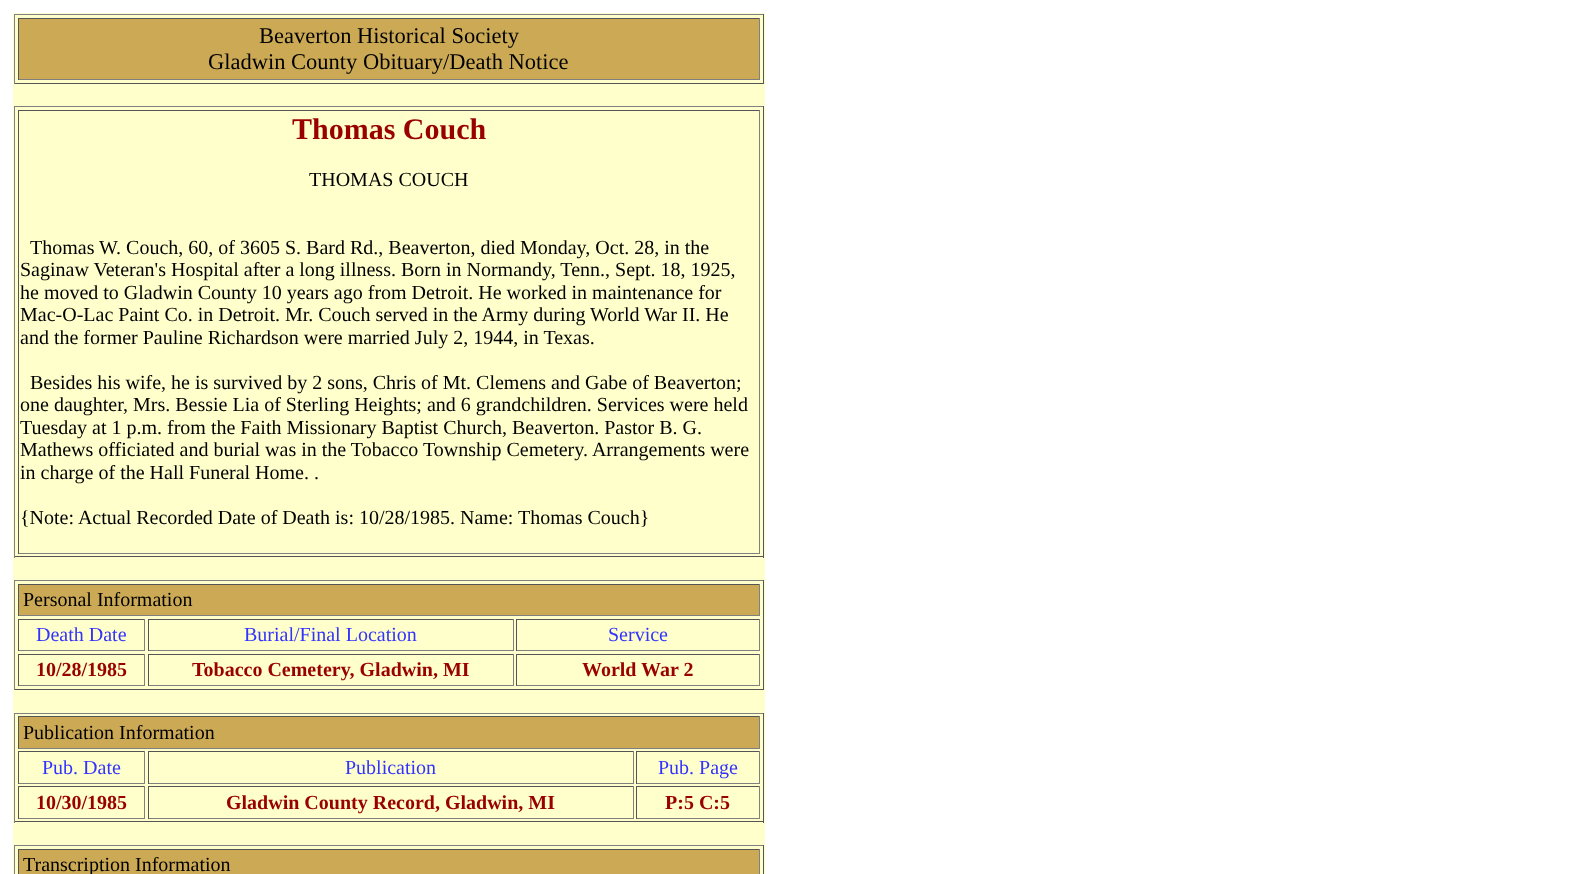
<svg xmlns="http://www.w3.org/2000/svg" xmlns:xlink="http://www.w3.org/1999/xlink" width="1572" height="874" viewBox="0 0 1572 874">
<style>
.cls-1{font:22.5px Liberation Serif;fill:#000000}
.cls-2{font:bold 30px Liberation Serif;fill:#990000}
.cls-3{font:20px Liberation Serif;fill:#000000}
.cls-4{font:20px Liberation Serif;fill:#3333ff}
.cls-5{font:bold 20px Liberation Serif;fill:#990000}
</style>
<rect width="100%" height="100%" fill="#ffffff"/>
<rect fill="#ffffcc" x="13" y="13" width="752" height="861"/>
<rect fill="#808080" x="14" y="14" width="750" height="1"/>
<rect fill="#555555" x="763" y="14" width="1" height="70"/>
<rect fill="#555555" x="14" y="83" width="750" height="1"/>
<rect fill="#808080" x="14" y="14" width="1" height="70"/>
<rect fill="#ccaa55" x="19" y="19" width="740" height="60"/>
<rect fill="#555555" x="18" y="18" width="742" height="1"/>
<rect fill="#808080" x="759" y="18" width="1" height="62"/>
<rect fill="#808080" x="18" y="79" width="742" height="1"/>
<rect fill="#555555" x="18" y="18" width="1" height="62"/>
<rect fill="#808080" x="14" y="106" width="750" height="1"/>
<rect fill="#555555" x="763" y="106" width="1" height="452"/>
<rect fill="#555555" x="14" y="556" width="750" height="1"/>
<rect fill="#808080" x="14" y="106" width="1" height="452"/>
<rect fill="#555555" x="18" y="110" width="742" height="1"/>
<rect fill="#808080" x="759" y="110" width="1" height="444"/>
<rect fill="#808080" x="18" y="553" width="742" height="1"/>
<rect fill="#555555" x="18" y="110" width="1" height="444"/>
<rect fill="#808080" x="14" y="580" width="750" height="1"/>
<rect fill="#555555" x="763" y="580" width="1" height="110"/>
<rect fill="#555555" x="14" y="689" width="750" height="1"/>
<rect fill="#808080" x="14" y="580" width="1" height="110"/>
<rect fill="#ccaa55" x="19" y="585" width="740" height="30"/>
<rect fill="#555555" x="18" y="584" width="742" height="1"/>
<rect fill="#808080" x="759" y="584" width="1" height="32"/>
<rect fill="#808080" x="18" y="615" width="742" height="1"/>
<rect fill="#555555" x="18" y="584" width="1" height="32"/>
<rect fill="#555555" x="18" y="619" width="127" height="1"/>
<rect fill="#808080" x="144" y="619" width="1" height="32"/>
<rect fill="#808080" x="18" y="650" width="127" height="1"/>
<rect fill="#555555" x="18" y="619" width="1" height="32"/>
<rect fill="#555555" x="148" y="619" width="366" height="1"/>
<rect fill="#808080" x="513" y="619" width="1" height="32"/>
<rect fill="#808080" x="148" y="650" width="366" height="1"/>
<rect fill="#555555" x="148" y="619" width="1" height="32"/>
<rect fill="#555555" x="516" y="619" width="244" height="1"/>
<rect fill="#808080" x="759" y="619" width="1" height="32"/>
<rect fill="#808080" x="516" y="650" width="244" height="1"/>
<rect fill="#555555" x="516" y="619" width="1" height="32"/>
<rect fill="#555555" x="18" y="654" width="127" height="1"/>
<rect fill="#808080" x="144" y="654" width="1" height="32"/>
<rect fill="#808080" x="18" y="685" width="127" height="1"/>
<rect fill="#555555" x="18" y="654" width="1" height="32"/>
<rect fill="#555555" x="148" y="654" width="366" height="1"/>
<rect fill="#808080" x="513" y="654" width="1" height="32"/>
<rect fill="#808080" x="148" y="685" width="366" height="1"/>
<rect fill="#555555" x="148" y="654" width="1" height="32"/>
<rect fill="#555555" x="516" y="654" width="244" height="1"/>
<rect fill="#808080" x="759" y="654" width="1" height="32"/>
<rect fill="#808080" x="516" y="685" width="244" height="1"/>
<rect fill="#555555" x="516" y="654" width="1" height="32"/>
<rect fill="#808080" x="14" y="713" width="750" height="1"/>
<rect fill="#555555" x="763" y="713" width="1" height="110"/>
<rect fill="#555555" x="14" y="821" width="750" height="1"/>
<rect fill="#808080" x="14" y="713" width="1" height="110"/>
<rect fill="#ccaa55" x="19" y="717" width="740" height="31"/>
<rect fill="#555555" x="18" y="716" width="742" height="1"/>
<rect fill="#808080" x="759" y="716" width="1" height="33"/>
<rect fill="#808080" x="18" y="748" width="742" height="1"/>
<rect fill="#555555" x="18" y="716" width="1" height="33"/>
<rect fill="#555555" x="18" y="751" width="127" height="1"/>
<rect fill="#808080" x="144" y="751" width="1" height="33"/>
<rect fill="#808080" x="18" y="783" width="127" height="1"/>
<rect fill="#555555" x="18" y="751" width="1" height="33"/>
<rect fill="#555555" x="148" y="751" width="486" height="1"/>
<rect fill="#808080" x="633" y="751" width="1" height="33"/>
<rect fill="#808080" x="148" y="783" width="486" height="1"/>
<rect fill="#555555" x="148" y="751" width="1" height="33"/>
<rect fill="#555555" x="636" y="751" width="124" height="1"/>
<rect fill="#808080" x="759" y="751" width="1" height="33"/>
<rect fill="#808080" x="636" y="783" width="124" height="1"/>
<rect fill="#555555" x="636" y="751" width="1" height="33"/>
<rect fill="#555555" x="18" y="786" width="127" height="1"/>
<rect fill="#808080" x="144" y="786" width="1" height="33"/>
<rect fill="#808080" x="18" y="818" width="127" height="1"/>
<rect fill="#555555" x="18" y="786" width="1" height="33"/>
<rect fill="#555555" x="148" y="786" width="486" height="1"/>
<rect fill="#808080" x="633" y="786" width="1" height="33"/>
<rect fill="#808080" x="148" y="818" width="486" height="1"/>
<rect fill="#555555" x="148" y="786" width="1" height="33"/>
<rect fill="#555555" x="636" y="786" width="124" height="1"/>
<rect fill="#808080" x="759" y="786" width="1" height="33"/>
<rect fill="#808080" x="636" y="818" width="124" height="1"/>
<rect fill="#555555" x="636" y="786" width="1" height="33"/>
<rect fill="#808080" x="14" y="845" width="750" height="1"/>
<rect fill="#555555" x="763" y="845" width="1" height="29"/>
<rect fill="#808080" x="14" y="845" width="1" height="29"/>
<rect fill="#ccaa55" x="19" y="850" width="740" height="24"/>
<rect fill="#555555" x="18" y="849" width="742" height="1"/>
<rect fill="#808080" x="759" y="849" width="1" height="25"/>
<rect fill="#555555" x="18" y="849" width="1" height="25"/>
<text class="cls-1" x="259" y="43">Beaverton Historical Society</text>
<text class="cls-1" x="208" y="69">Gladwin County Obituary/Death Notice</text>
<text class="cls-2" x="292" y="139">Thomas Couch</text>
<text class="cls-3" x="309" y="186">THOMAS COUCH</text>
<text class="cls-3" x="30" y="254">Thomas W. Couch, 60, of 3605 S. Bard Rd., Beaverton, died Monday, Oct. 28, in the</text>
<text class="cls-3"><tspan x="20" y="276">Saginaw Veteran's Hospital after a long illness. Born in Normandy, Tenn., Sept. 18, 1925,</tspan><tspan x="20" y="299">he moved to Gladwin County 10 years ago from Detroit. He worked in maintenance for</tspan><tspan x="20" y="321">Mac-O-Lac Paint Co. in Detroit. Mr. Couch served in the Army during World War II. He</tspan><tspan x="20" y="344">and the former Pauline Richardson were married July 2, 1944, in Texas.</tspan></text>
<text class="cls-3" x="30" y="389">Besides his wife, he is survived by 2 sons, Chris of Mt. Clemens and Gabe of Beaverton;</text>
<text class="cls-3"><tspan x="20" y="411">one daughter, Mrs. Bessie Lia of Sterling Heights; and 6 grandchildren. Services were held</tspan><tspan x="20" y="434">Tuesday at 1 p.m. from the Faith Missionary Baptist Church, Beaverton. Pastor B. G.</tspan><tspan x="20" y="456">Mathews officiated and burial was in the Tobacco Township Cemetery. Arrangements were</tspan><tspan x="20" y="479">in charge of the Hall Funeral Home. .</tspan></text>
<text class="cls-3" x="20" y="524">{Note: Actual Recorded Date of Death is: 10/28/1985. Name: Thomas Couch}</text>
<text class="cls-3" x="23" y="606">Personal Information</text>
<text class="cls-4" x="36" y="641">Death Date</text>
<text class="cls-4" x="244" y="641">Burial/Final Location</text>
<text class="cls-4" x="608" y="641">Service</text>
<text class="cls-5" x="36" y="676">10/28/1985</text>
<text class="cls-5" x="192" y="676">Tobacco Cemetery, Gladwin, MI</text>
<text class="cls-5" x="582" y="676">World War 2</text>
<text class="cls-3" x="23" y="739">Publication Information</text>
<text class="cls-4" x="42" y="774">Pub. Date</text>
<text class="cls-4" x="345" y="774">Publication</text>
<text class="cls-4" x="658" y="774">Pub. Page</text>
<text class="cls-5" x="36" y="809">10/30/1985</text>
<text class="cls-5" x="226" y="809">Gladwin County Record, Gladwin, MI</text>
<text class="cls-5" x="665" y="809">P:5 C:5</text>
<text class="cls-3" x="23" y="871">Transcription Information</text>
</svg>
